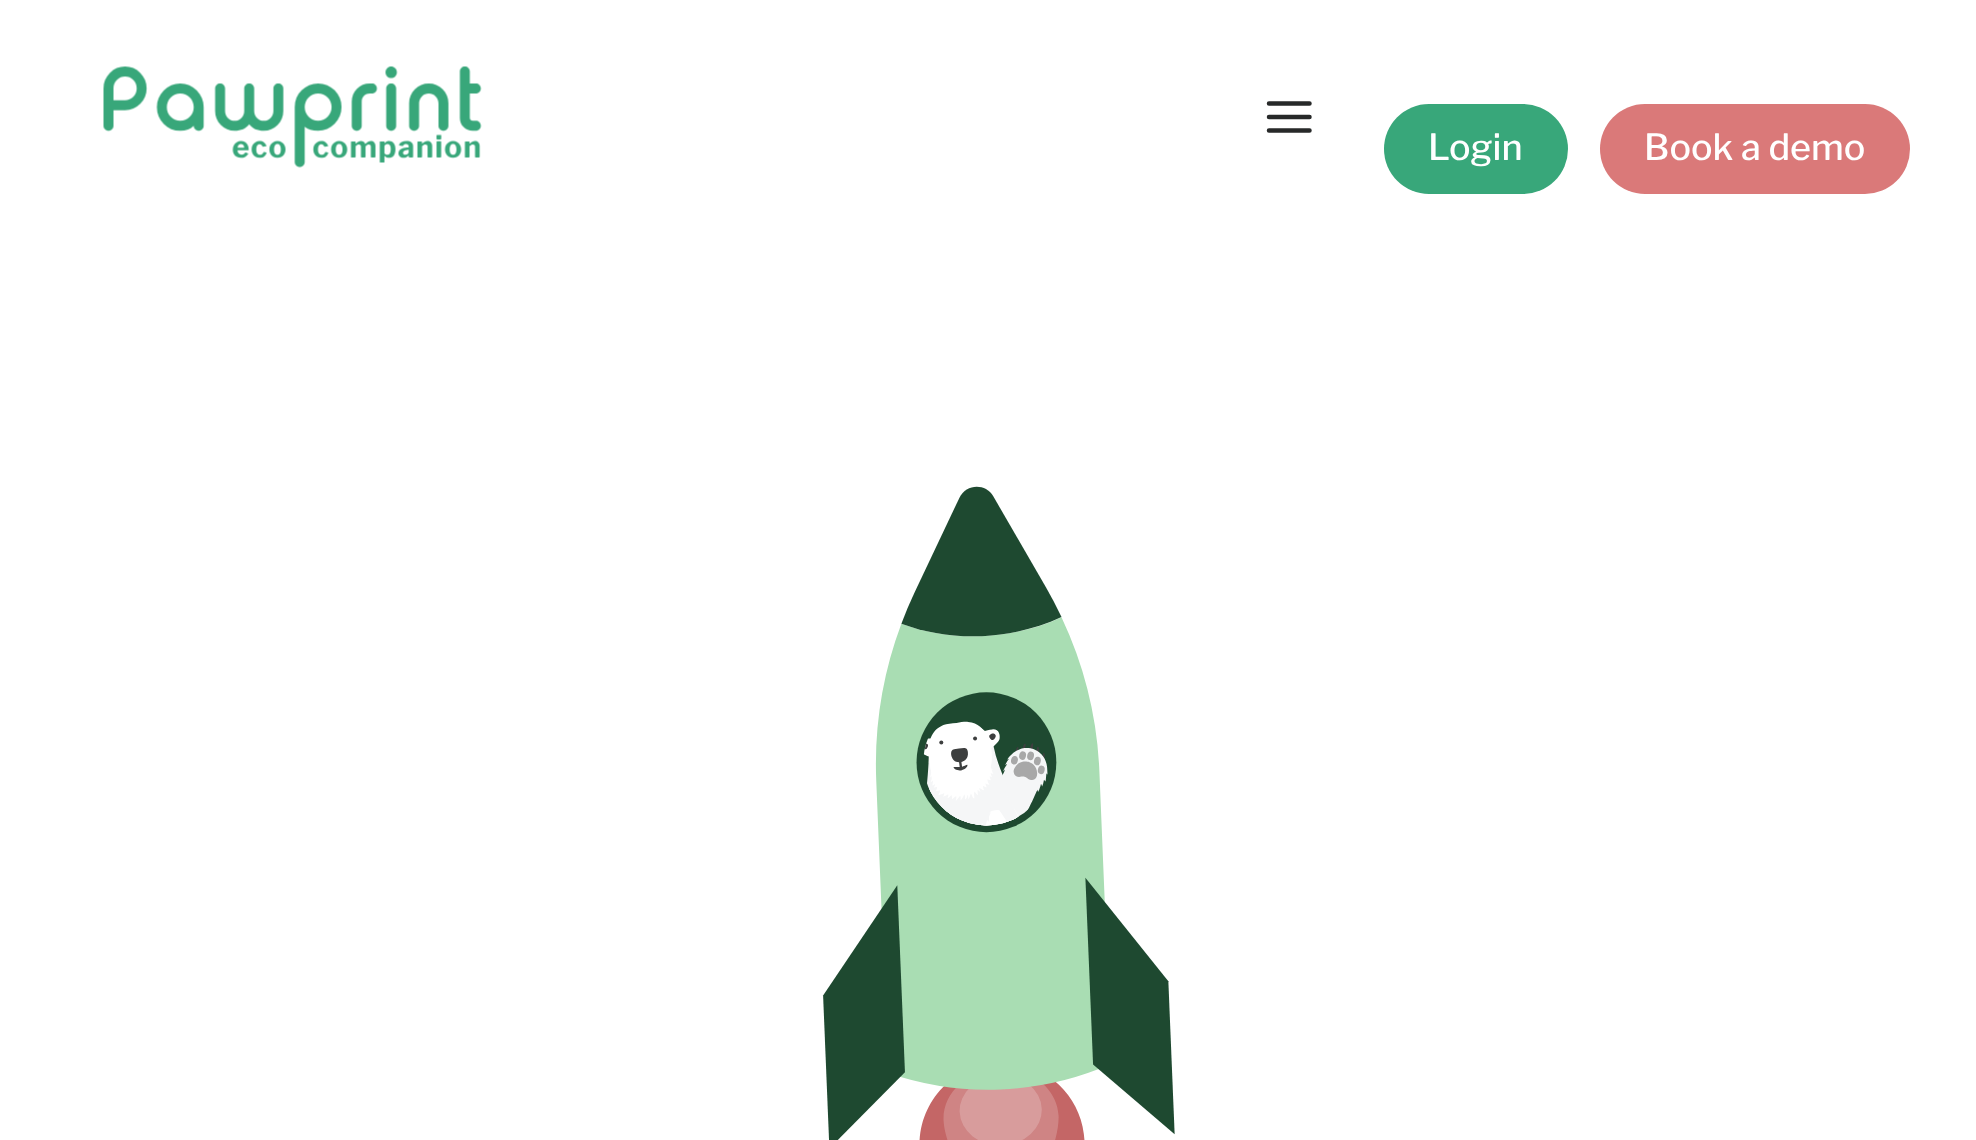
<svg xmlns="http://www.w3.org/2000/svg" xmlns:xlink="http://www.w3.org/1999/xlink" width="1976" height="1140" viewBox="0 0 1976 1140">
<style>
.cls-1{font:500 36px Libre Franklin;fill:#ffffff}
</style>
<rect width="100%" height="100%" fill="#ffffff"/>
<image xlink:href="image0.png" x="103" y="66" width="379" height="102"/>
<path fill="none" stroke="#272929" stroke-width="4.5" stroke-linecap="round" stroke-linejoin="round" d="M1269 117H1309.5M1269 103.5H1309.5M1269 130.5H1309.5"/>
<rect fill="#38a77a" x="1384" y="104" width="184" height="90" rx="45"/>
<rect fill="#da7979" x="1600" y="104" width="310" height="90" rx="45"/>
<image xlink:href="image1.png" x="822" y="486" width="353" height="654"/>
<text class="cls-1" x="1428" y="160">Login</text>
<text class="cls-1" x="1644" y="160">Book a demo</text>
</svg>
